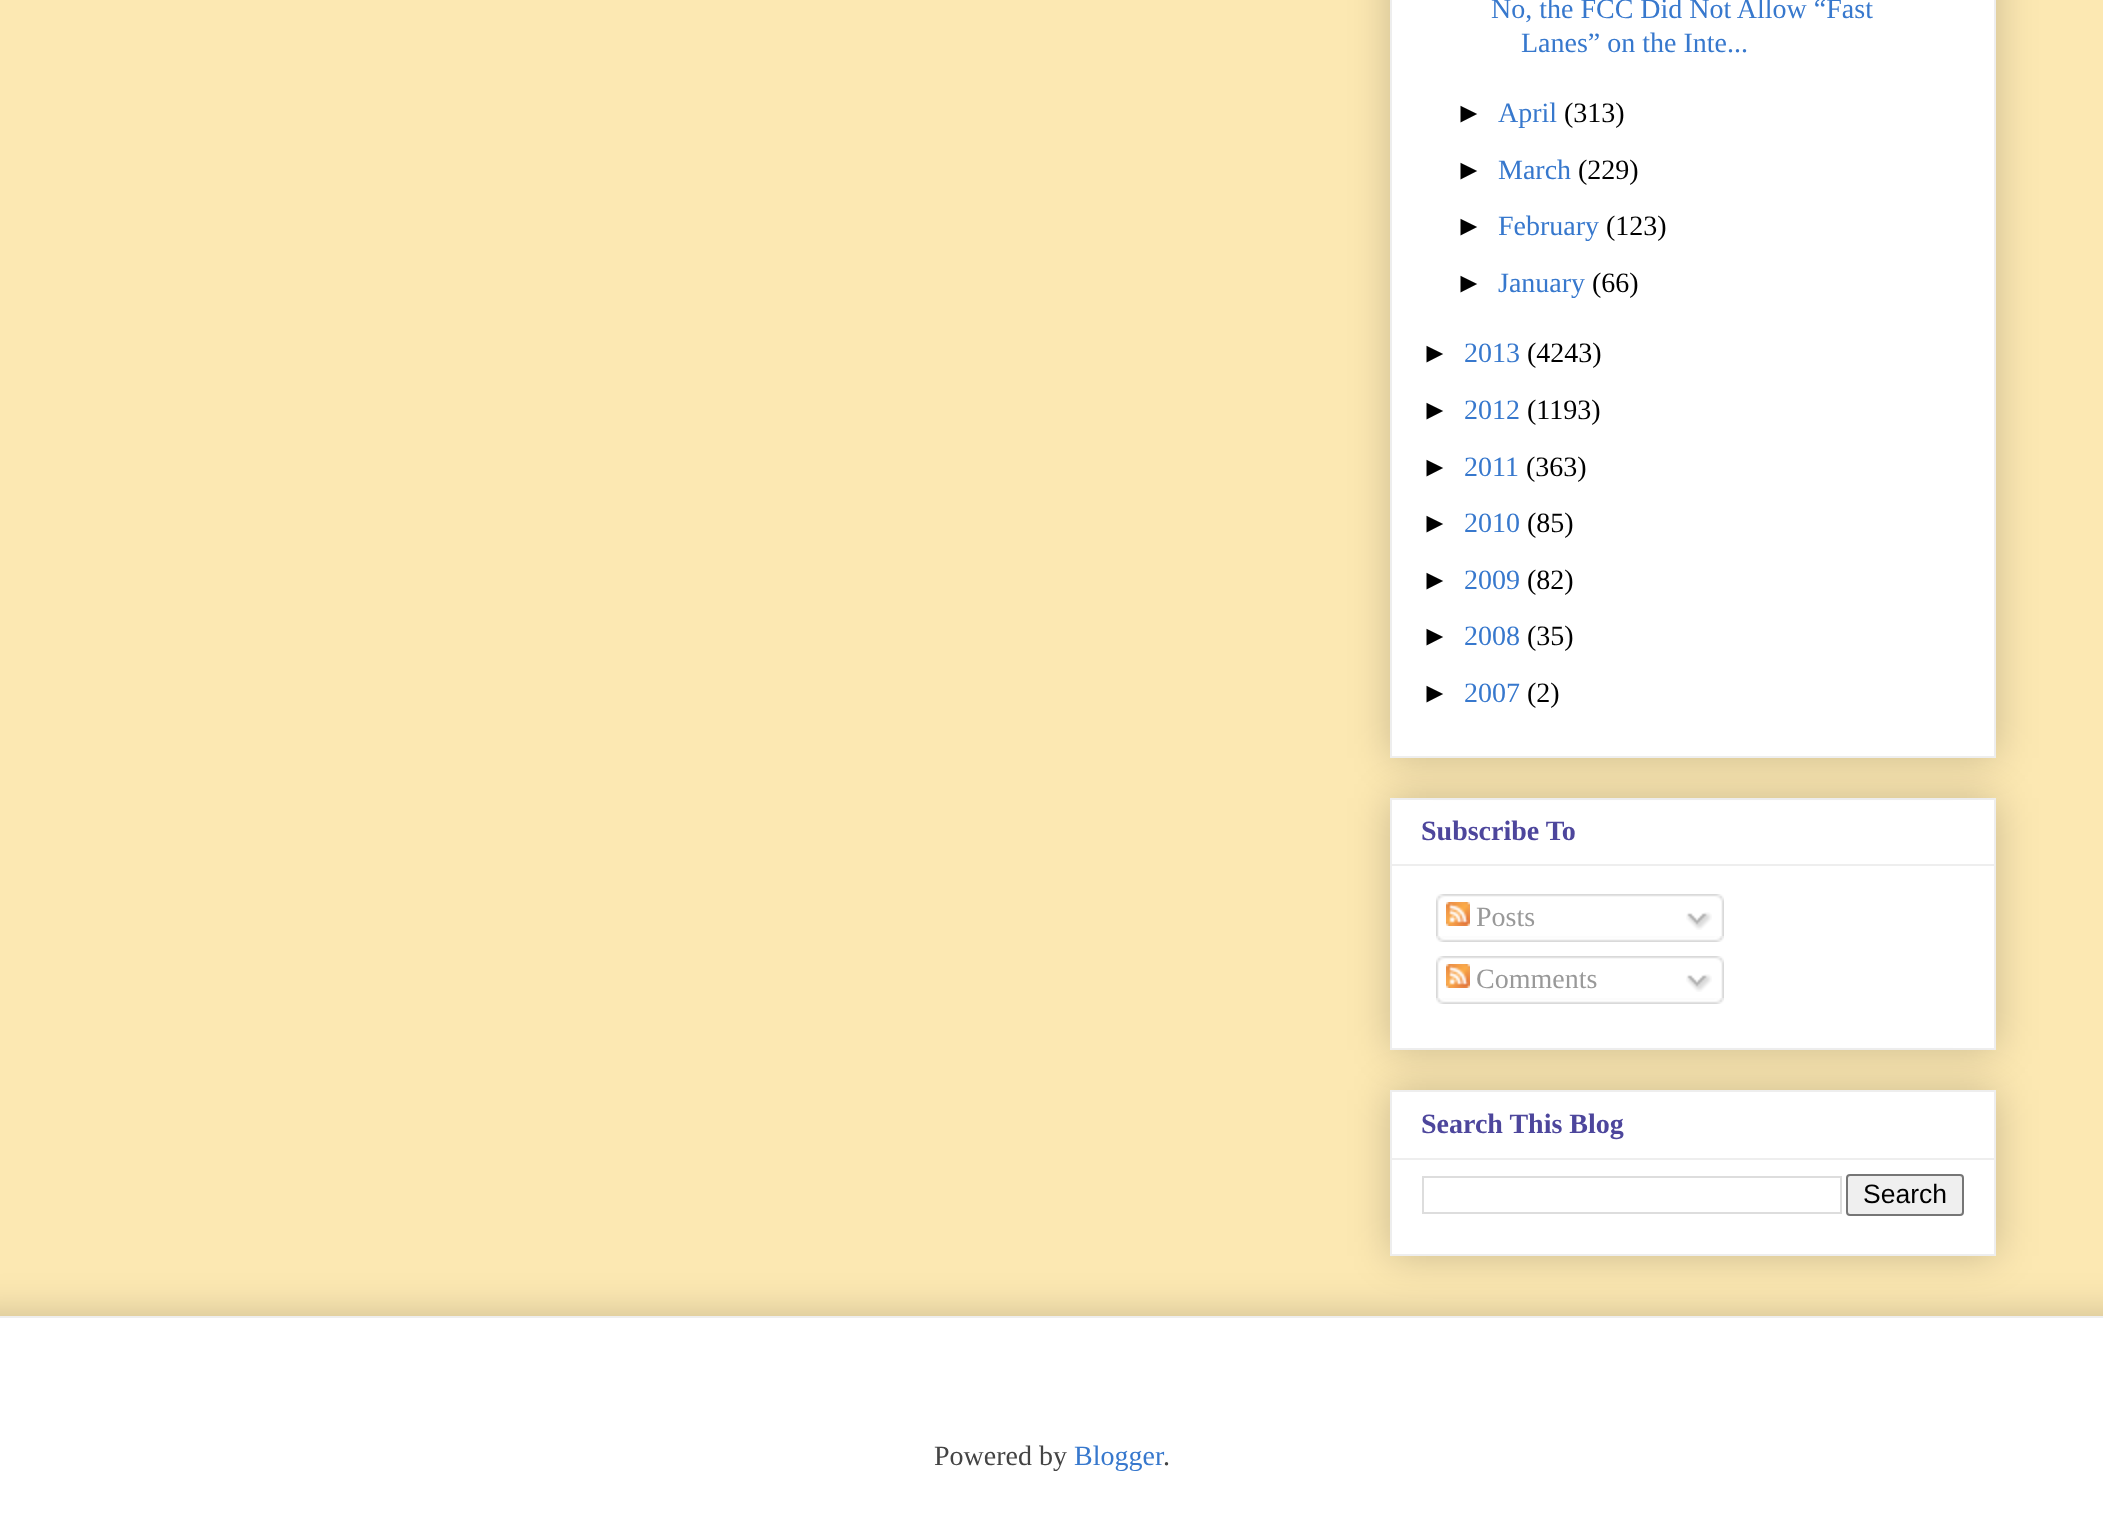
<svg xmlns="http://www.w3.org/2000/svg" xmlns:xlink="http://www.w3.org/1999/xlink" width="2103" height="1535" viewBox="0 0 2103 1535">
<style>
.cls-1{font:28px Liberation Serif;fill:#3778cd}
.cls-2{font:28px Liberation Sans;fill:#000000}
.cls-3{font:28px Liberation Serif;fill:#000000}
.cls-4{font:bold 28px Liberation Serif;fill:#4d469c}
.cls-5{font:28px Liberation Serif;fill:#999999}
.cls-6{font:26.5px Liberation Sans;fill:#000000}
.cls-7{font:28px Liberation Serif;fill:#444444}
</style>
<rect width="100%" height="100%" fill="#fce8b2"/>
<rect fill="#000000" fill-opacity="0.2" filter="blur(20px)" x="1390" y="798" width="606" height="252"/>
<rect fill="#ffffff" stroke="#eeeeee" stroke-width="2" x="1391" y="799" width="604" height="250"/>
<rect fill="#000000" fill-opacity="0.2" filter="blur(20px)" x="1390" y="-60" width="606" height="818"/>
<rect fill="#ffffff" stroke="#eeeeee" stroke-width="2" x="1391" y="-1" width="604" height="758"/>
<rect fill="#eeeeee" x="1392" y="864" width="602" height="2"/>
<image xlink:href="image0.png" x="1436" y="894" width="288" height="42"/>
<image xlink:href="image1.png" x="1446" y="902" width="24" height="24"/>
<image xlink:href="image2.png" x="1686" y="912" width="26" height="18"/>
<image xlink:href="image3.png" x="1436" y="936" width="288" height="6"/>
<image xlink:href="image0.png" x="1436" y="956" width="288" height="42"/>
<image xlink:href="image1.png" x="1446" y="964" width="24" height="24"/>
<image xlink:href="image2.png" x="1686" y="974" width="26" height="18"/>
<image xlink:href="image3.png" x="1436" y="998" width="288" height="6"/>
<rect fill="#000000" fill-opacity="0.2" filter="blur(20px)" x="1390" y="1090" width="606" height="166"/>
<rect fill="#ffffff" stroke="#eeeeee" stroke-width="2" x="1391" y="1091" width="604" height="164"/>
<rect fill="#eeeeee" x="1392" y="1158" width="602" height="2"/>
<rect fill="none" stroke="#dddddd" stroke-width="2" x="1423" y="1177" width="418" height="36"/>
<rect fill="#efefef" stroke="#767676" stroke-width="2" x="1847" y="1175" width="116" height="40" rx="3"/>
<rect fill="#000000" fill-opacity="0.2" filter="blur(20px)" x="-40" y="1316" width="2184" height="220"/>
<rect fill="#ffffff" x="0" y="1318" width="2103" height="217"/>
<rect fill="#eeeeee" x="0" y="1316" width="2103" height="2"/>
<text class="cls-1" x="1491" y="18">No, the FCC Did Not Allow “Fast</text>
<text class="cls-1" x="1521" y="52">Lanes” on the Inte...</text>
<text class="cls-2" x="1455" y="122">►</text>
<text class="cls-1" x="1498" y="122">April</text>
<text class="cls-3" x="1564" y="122">(313)</text>
<text class="cls-2" x="1455" y="179">►</text>
<text class="cls-1" x="1498" y="179">March</text>
<text class="cls-3" x="1578" y="179">(229)</text>
<text class="cls-2" x="1455" y="235">►</text>
<text class="cls-1" x="1498" y="235">February</text>
<text class="cls-3" x="1606" y="235">(123)</text>
<text class="cls-2" x="1455" y="292">►</text>
<text class="cls-1" x="1498" y="292">January</text>
<text class="cls-3" x="1592" y="292">(66)</text>
<text class="cls-2" x="1421" y="362">►</text>
<text class="cls-1" x="1464" y="362">2013</text>
<text class="cls-3" x="1527" y="362">(4243)</text>
<text class="cls-2" x="1421" y="419">►</text>
<text class="cls-1" x="1464" y="419">2012</text>
<text class="cls-3" x="1527" y="419">(1193)</text>
<text class="cls-2" x="1421" y="476">►</text>
<text class="cls-1" x="1464" y="476">2011</text>
<text class="cls-3" x="1526" y="476">(363)</text>
<text class="cls-2" x="1421" y="532">►</text>
<text class="cls-1" x="1464" y="532">2010</text>
<text class="cls-3" x="1527" y="532">(85)</text>
<text class="cls-2" x="1421" y="589">►</text>
<text class="cls-1" x="1464" y="589">2009</text>
<text class="cls-3" x="1527" y="589">(82)</text>
<text class="cls-2" x="1421" y="645">►</text>
<text class="cls-1" x="1464" y="645">2008</text>
<text class="cls-3" x="1527" y="645">(35)</text>
<text class="cls-2" x="1421" y="702">►</text>
<text class="cls-1" x="1464" y="702">2007</text>
<text class="cls-3" x="1527" y="702">(2)</text>
<text class="cls-4" x="1421" y="840">Subscribe To</text>
<text class="cls-5" x="1476" y="926">Posts</text>
<text class="cls-5" x="1476" y="988">Comments</text>
<text class="cls-4" x="1421" y="1133">Search This Blog</text>
<text class="cls-6" x="1863" y="1203">Search</text>
<text class="cls-7" x="934" y="1465">Powered by</text>
<text class="cls-1" x="1074" y="1465">Blogger</text>
<text class="cls-7" x="1163" y="1465">.</text>
</svg>
